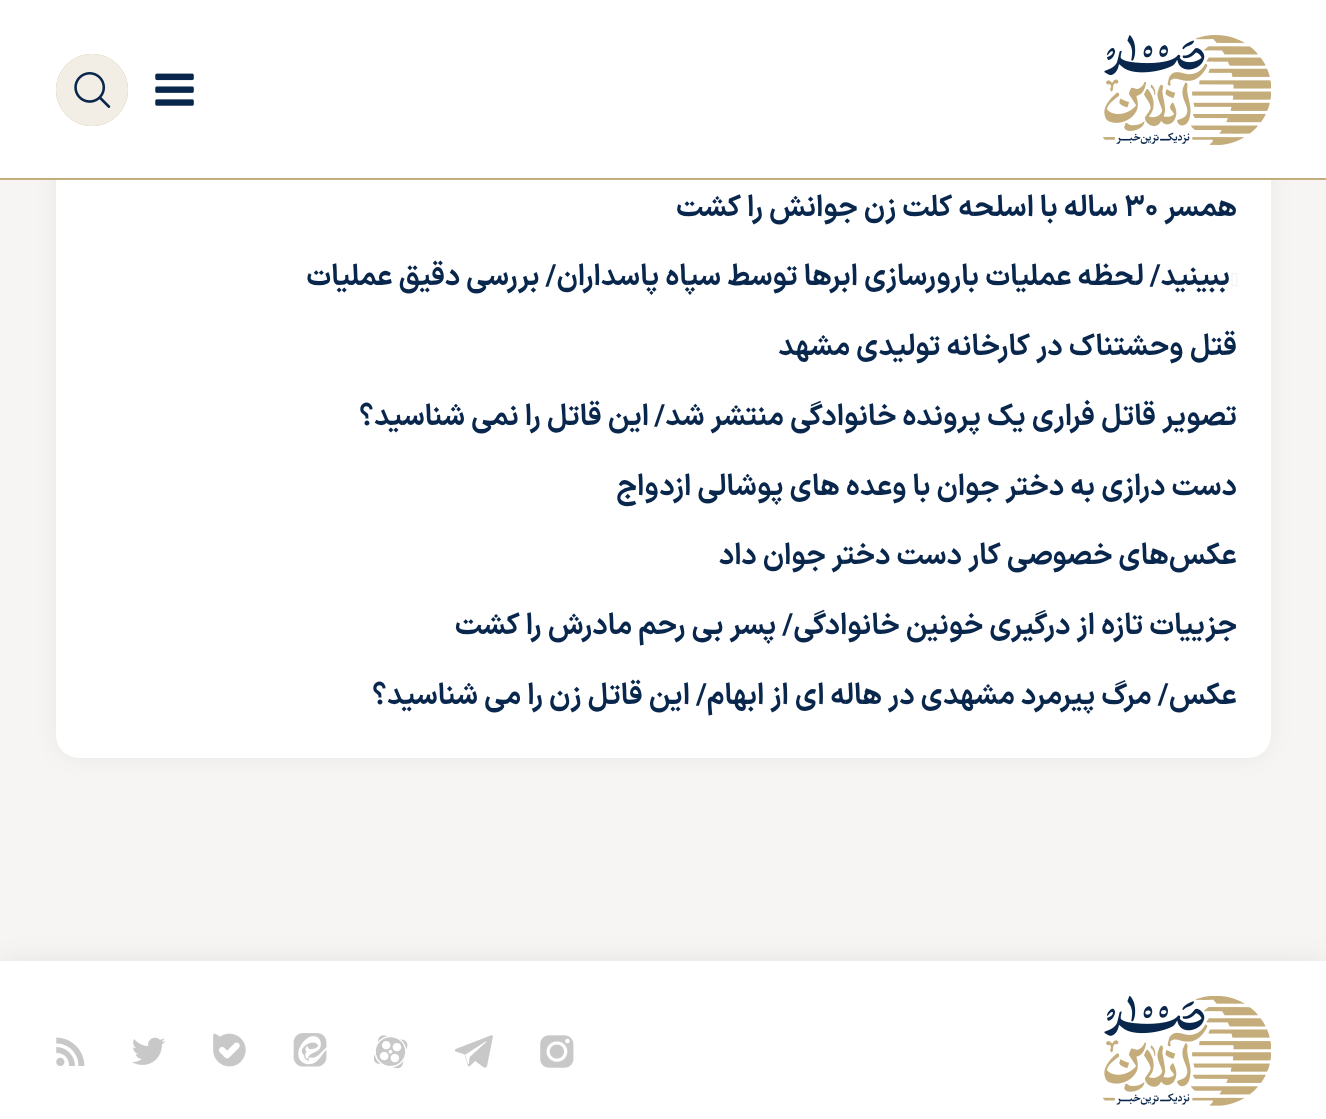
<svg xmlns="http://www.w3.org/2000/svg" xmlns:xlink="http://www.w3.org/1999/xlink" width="1326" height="1119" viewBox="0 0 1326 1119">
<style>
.cls-1{font:bold 29.25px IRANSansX;direction:rtl;fill:#09274c}
.cls-2{font:bold 29.25px IRANSansX;fill:#09274c}
</style>
<rect width="100%" height="100%" fill="#f6f5f3"/>
<rect fill="#000000" fill-opacity="0.05" filter="blur(11px)" x="56" y="-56" width="1215" height="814" rx="23"/>
<rect fill="#ffffff" x="56" y="-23" width="1215" height="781" rx="23"/>
<rect fill="#ffffff" x="0" y="0" width="1326" height="178"/>
<rect fill="#c4ad7b" x="0" y="178" width="1326" height="2"/>
<image xlink:href="image0.png" x="1103" y="35" width="168" height="110"/>
<image xlink:href="image1.png" x="155" y="73" width="39" height="33"/>
<image xlink:href="image2.png" x="56" y="54" width="72" height="72"/>
<image xlink:href="image3.png" x="1231" y="273" width="7" height="13"/>
<rect fill="#000000" fill-opacity="0.15" filter="blur(17px)" x="0" y="972" width="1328" height="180"/>
<rect fill="#ffffff" x="0" y="961" width="1326" height="158"/>
<image xlink:href="image4.png" x="1103" y="996" width="168" height="110"/>
<image xlink:href="image5.png" x="540" y="1035" width="34" height="33"/>
<image xlink:href="image6.png" x="455" y="1035" width="38" height="33"/>
<image xlink:href="image7.png" x="374" y="1035" width="34" height="34"/>
<image xlink:href="image8.png" x="293" y="1033" width="34" height="34"/>
<image xlink:href="image9.png" x="213" y="1033" width="33" height="34"/>
<image xlink:href="image10.png" x="132" y="1037" width="33" height="28"/>
<image xlink:href="image11.png" x="56" y="1037" width="29" height="29"/>
<text class="cls-1" x="1237" y="216">همسر</text>
<text class="cls-2" x="1124" y="216">۳۰</text>
<text class="cls-1" x="1118" y="216">ساله با اسلحه کلت زن جوانش را کشت</text>
<text class="cls-1" x="1230" y="285">ببینید/ لحظه عملیات بارورسازی ابرها توسط سپاه پاسداران/ بررسی دقیق عملیات</text>
<text class="cls-1" x="1237" y="355">قتل وحشتناک در کارخانه تولیدی مشهد</text>
<text class="cls-1" x="1237" y="425">تصویر قاتل فراری یک پرونده خانوادگی منتشر شد/</text>
<text class="cls-1" x="649" y="425">این قاتل را نمی شناسید؟</text>
<text class="cls-1" x="1237" y="495">دست درازی به دختر جوان با وعده های پوشالی ازدواج</text>
<text class="cls-1" x="1237" y="564">عکس‌های خصوصی کار دست دختر جوان داد</text>
<text class="cls-1" x="1237" y="634">جزییات تازه از درگیری خونین خانوادگی/ پسر بی رحم مادرش را کشت</text>
<text class="cls-1" x="1237" y="704">عکس/ مرگ پیرمرد مشهدی در هاله ای از ابهام/ این قاتل زن را می شناسید؟</text>
</svg>
